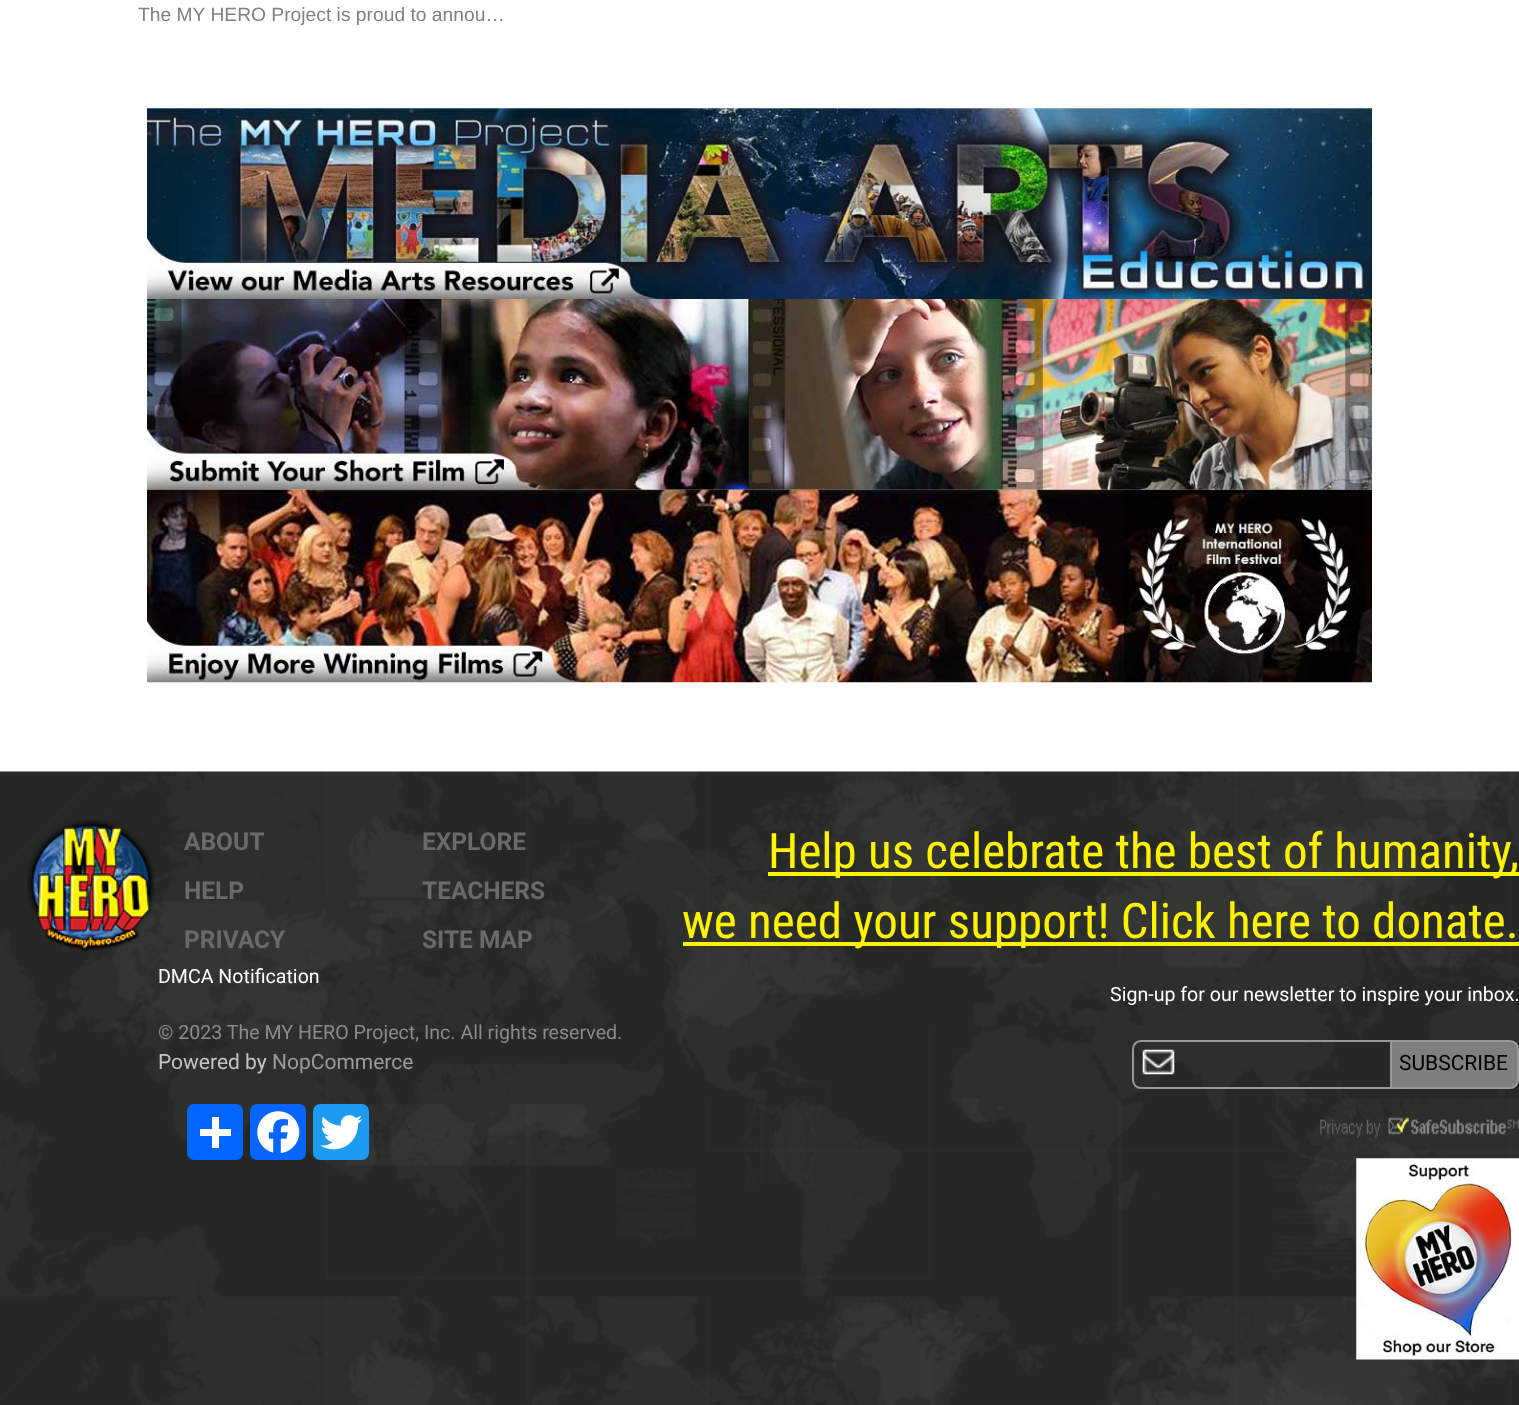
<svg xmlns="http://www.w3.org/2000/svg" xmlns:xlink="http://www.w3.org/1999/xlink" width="1519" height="1405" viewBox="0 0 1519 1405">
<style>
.cls-1{font:19.25px Liberation Sans;fill:#808080}
.cls-2{font:bold 24.5px Roboto;fill:#6a6a6a}
.cls-3{font:19.6px Roboto;fill:#ffffff}
.cls-4{font:19.6px Roboto;fill:#8b8b8b}
.cls-5{font:21px Roboto;fill:#c4c4c4}
.cls-6{font:21px Roboto;fill:#9b9b9b}
.cls-7{font:49px Roboto Condensed;fill:#fff200}
.cls-8{font:21px Roboto;fill:#000000}
</style>
<rect width="100%" height="100%" fill="#ffffff"/>
<image xlink:href="image0.png" x="147" y="108" width="1225" height="191"/>
<image xlink:href="image1.png" x="147" y="299" width="1225" height="191"/>
<image xlink:href="image2.png" x="147" y="489" width="1225" height="194"/>
<image xlink:href="image3.png" x="0" y="771" width="1519" height="634"/>
<image xlink:href="image4.png" x="27" y="820" width="128" height="132"/>
<rect fill="#0166ff" x="187" y="1104" width="56" height="56" rx="7"/>
<rect fill="#ffffff" x="212" y="1117" width="7" height="31"/>
<rect fill="#ffffff" x="200" y="1129" width="31" height="7"/>
<rect fill="#0866ff" x="250" y="1104" width="56" height="56" rx="7"/>
<image xlink:href="image5.png" x="257" y="1111" width="43" height="42"/>
<rect fill="#1d9bf0" x="313" y="1104" width="56" height="56" rx="7"/>
<image xlink:href="image6.png" x="320" y="1115" width="43" height="35"/>
<rect fill="#fff200" x="768" y="872" width="751" height="4"/>
<rect fill="#fff200" x="683" y="942" width="836" height="4"/>
<image xlink:href="image7.png" x="1142" y="1049" width="33" height="26"/>
<path fill="none" stroke="#989898" stroke-width="2" d="M1141 1041H1394V1088H1141C1136.5 1088 1133 1084.5 1133 1080V1049C1133 1044.5 1136.5 1041 1141 1041Z"/>
<path fill="#7f7f7f" stroke="#989898" stroke-width="2" d="M1391 1041H1510C1514.5 1041 1518 1044.5 1518 1049V1080C1518 1084.5 1514.5 1088 1510 1088H1391Z"/>
<image xlink:href="image8.png" x="1320" y="1117" width="199" height="21"/>
<image xlink:href="image9.png" x="1356" y="1158" width="163" height="202"/>
<text class="cls-1" x="138" y="21">The MY HERO Project is proud to annou…</text>
<text class="cls-2" x="184" y="850">ABOUT</text>
<text class="cls-2" x="184" y="899">HELP</text>
<text class="cls-2" x="184" y="948">PRIVACY</text>
<text class="cls-2" x="422" y="850">EXPLORE</text>
<text class="cls-2" x="422" y="899">TEACHERS</text>
<text class="cls-2" x="422" y="948">SITE MAP</text>
<text class="cls-3" x="158" y="983">DMCA Notification</text>
<text class="cls-4" x="158" y="1039">© 2023 The MY HERO Project, Inc. All rights reserved.</text>
<text class="cls-5" x="158" y="1069">Powered by</text>
<text class="cls-6" x="272" y="1069">NopCommerce</text>
<text class="cls-7" x="768" y="868">Help us celebrate the best of humanity,</text>
<text class="cls-7" x="682" y="938">we need your support! Click here to donate.</text>
<text class="cls-3" x="1110" y="1001">Sign-up for our newsletter to inspire your inbox.</text>
<text class="cls-8" x="1399" y="1070">SUBSCRIBE</text>
</svg>
